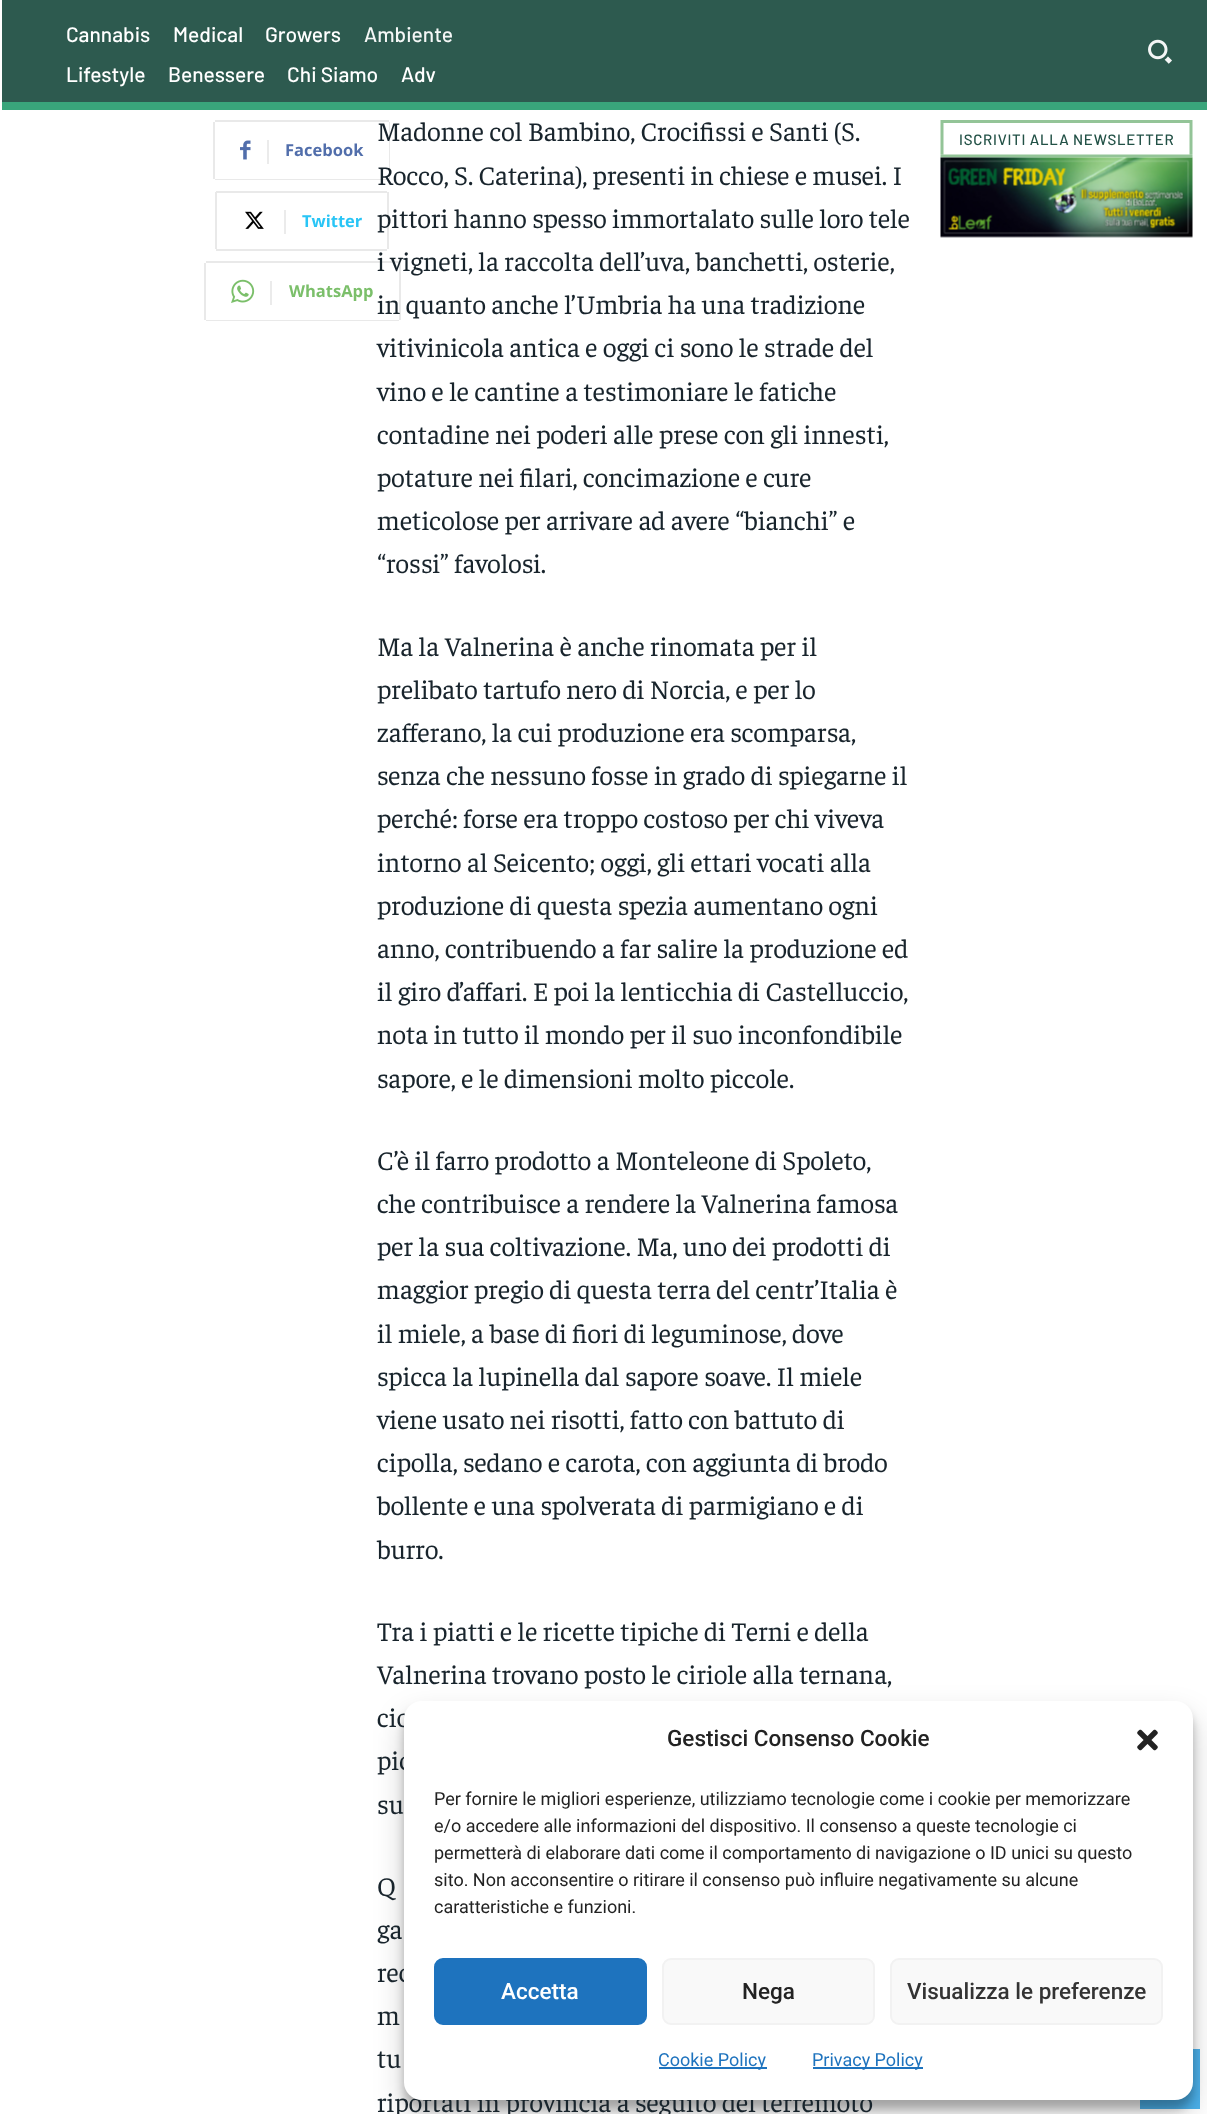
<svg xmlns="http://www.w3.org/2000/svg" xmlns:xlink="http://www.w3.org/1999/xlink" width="1207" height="2114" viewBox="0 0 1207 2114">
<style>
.cls-1{font:500 21px Barlow;fill:#ffffff}
.cls-2{font:500 21px Barlow;fill:#f4f7f6}
.cls-3{font:bold 16.5px Open Sans;fill:#516eab}
.cls-4{font:bold 16.5px Open Sans;fill:#29c5f6}
.cls-5{font:bold 16.5px Open Sans;fill:#7bbf6a}
.cls-6{font:27px Faustina;fill:#18242c}
.cls-7{font:500 15px Barlow;letter-spacing:0.75px;fill:#225146}
.cls-8{font:500 22.5px Roboto;fill:#222222}
.cls-9{font:18px Roboto;fill:#222222}
.cls-10{font:500 22.5px Roboto;fill:#ffffff}
.cls-11{font:500 22.5px Roboto;fill:#333333}
.cls-12{font:18px Roboto;fill:#1e73be}
</style>
<rect width="100%" height="100%" fill="#ffffff"/>
<rect fill="#2d5a4f" x="2" y="0" width="1205" height="110"/>
<image xlink:href="image0.png" x="1148" y="39" width="24" height="25"/>
<rect fill="#3aaa7d" fill-opacity="0.95" x="2" y="102" width="1205" height="8"/>
<rect fill="#e9e9e9" x="213" y="122" width="2" height="57"/>
<image xlink:href="image1.png" x="240" y="140" width="11" height="20"/>
<rect fill="#e9e9e9" x="215" y="120" width="174" height="2"/>
<rect fill="#e9e9e9" x="389" y="122" width="1" height="57"/>
<rect fill="#e9e9e9" x="215" y="179" width="174" height="1"/>
<rect fill="#ebebeb" x="267" y="140" width="2" height="24"/>
<rect fill="#e9e9e9" x="216" y="191" width="171" height="2"/>
<rect fill="#e9e9e9" x="215" y="192" width="2" height="57"/>
<image xlink:href="image2.png" x="245" y="211" width="19" height="18"/>
<rect fill="#e9e9e9" x="387" y="192" width="2" height="57"/>
<rect fill="#e9e9e9" x="216" y="249" width="171" height="2"/>
<rect fill="#ebebeb" x="284" y="210" width="2" height="24"/>
<rect fill="#e9e9e9" x="204" y="263" width="2" height="57"/>
<image xlink:href="image3.png" x="231" y="279" width="24" height="24"/>
<rect fill="#e9e9e9" x="206" y="261" width="193" height="2"/>
<rect fill="#e9e9e9" x="399" y="263" width="2" height="57"/>
<rect fill="#e9e9e9" x="206" y="320" width="193" height="1"/>
<rect fill="#ebebeb" x="270" y="281" width="2" height="24"/>
<rect fill="#4db2ec" x="1140" y="2049" width="60" height="60"/>
<rect fill="#000000" fill-opacity="0.23" filter="blur(4.5px)" x="404" y="1710" width="789" height="399" rx="18"/>
<rect fill="#000000" fill-opacity="0.19" filter="blur(15px)" x="404" y="1716" width="789" height="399" rx="18"/>
<text class="cls-1" x="66" y="42">Cannabis</text>
<text class="cls-1" x="173" y="42">Medical</text>
<text class="cls-1" x="265" y="42">Growers</text>
<text class="cls-2" x="364" y="42">Ambiente</text>
<text class="cls-1" x="66" y="82">Lifestyle</text>
<text class="cls-1" x="168" y="82">Benessere</text>
<text class="cls-1" x="287" y="82">Chi Siamo</text>
<text class="cls-1" x="401" y="82">Adv</text>
<text class="cls-3" x="285" y="156">Facebook</text>
<text class="cls-4" x="302" y="227">Twitter</text>
<text class="cls-5" x="289" y="297">WhatsApp</text>
<text class="cls-6"><tspan x="377" y="141">Madonne col Bambino, Crocifissi e Santi (S.</tspan><tspan x="377" y="185">Rocco, S. Caterina), presenti in chiese e musei. I</tspan><tspan x="377" y="228">pittori hanno spesso immortalato sulle loro tele</tspan><tspan x="377" y="271">i vigneti, la raccolta dell’uva, banchetti, osterie,</tspan><tspan x="377" y="314">in quanto anche l’Umbria ha una tradizione</tspan><tspan x="377" y="357">vitivinicola antica e oggi ci sono le strade del</tspan><tspan x="377" y="401">vino e le cantine a testimoniare le fatiche</tspan><tspan x="377" y="444">contadine nei poderi alle prese con gli innesti,</tspan><tspan x="377" y="487">potature nei filari, concimazione e cure</tspan><tspan x="377" y="530">meticolose per arrivare ad avere “bianchi” e</tspan><tspan x="377" y="573">“rossi” favolosi.</tspan></text>
<text class="cls-6"><tspan x="377" y="656">Ma la Valnerina è anche rinomata per il</tspan><tspan x="377" y="699">prelibato tartufo nero di Norcia, e per lo</tspan><tspan x="377" y="742">zafferano, la cui produzione era scomparsa,</tspan><tspan x="377" y="785">senza che nessuno fosse in grado di spiegarne il</tspan><tspan x="377" y="828">perché: forse era troppo costoso per chi viveva</tspan><tspan x="377" y="872">intorno al Seicento; oggi, gli ettari vocati alla</tspan><tspan x="377" y="915">produzione di questa spezia aumentano ogni</tspan><tspan x="377" y="958">anno, contribuendo a far salire la produzione ed</tspan><tspan x="377" y="1001">il giro d’affari. E poi la lenticchia di Castelluccio,</tspan><tspan x="377" y="1044">nota in tutto il mondo per il suo inconfondibile</tspan><tspan x="377" y="1088">sapore, e le dimensioni molto piccole.</tspan></text>
<text class="cls-6"><tspan x="377" y="1170">C’è il farro prodotto a Monteleone di Spoleto,</tspan><tspan x="377" y="1213">che contribuisce a rendere la Valnerina famosa</tspan><tspan x="377" y="1256">per la sua coltivazione. Ma, uno dei prodotti di</tspan><tspan x="377" y="1299">maggior pregio di questa terra del centr’Italia è</tspan><tspan x="377" y="1343">il miele, a base di fiori di leguminose, dove</tspan><tspan x="377" y="1386">spicca la lupinella dal sapore soave. Il miele</tspan><tspan x="377" y="1429">viene usato nei risotti, fatto con battuto di</tspan><tspan x="377" y="1472">cipolla, sedano e carota, con aggiunta di brodo</tspan><tspan x="377" y="1515">bollente e una spolverata di parmigiano e di</tspan><tspan x="377" y="1559">burro.</tspan></text>
<text class="cls-6"><tspan x="377" y="1641">Tra i piatti e le ricette tipiche di Terni e della</tspan><tspan x="377" y="1684">Valnerina trovano posto le ciriole alla ternana,</tspan><tspan x="377" y="1727">cio</tspan><tspan x="377" y="1770">pic</tspan><tspan x="377" y="1814">su</tspan></text>
<text class="cls-6"><tspan x="377" y="1896">Q</tspan><tspan x="377" y="1939">ga</tspan><tspan x="377" y="1982">rec</tspan><tspan x="377" y="2025">m</tspan><tspan x="377" y="2068">tu</tspan><tspan x="377" y="2112">riportati in provincia a seguito del terremoto</tspan></text>
<text class="cls-7" x="959" y="145">ISCRIVITI ALLA NEWSLETTER</text>
<image xlink:href="image4.png" x="940" y="120" width="253" height="38"/>
<image xlink:href="image5.png" x="940" y="157" width="253" height="81"/>
<rect fill="#ffffff" x="404" y="1701" width="789" height="399" rx="18"/>
<text class="cls-8" x="667" y="1746">Gestisci Consenso Cookie</text>
<image xlink:href="image6.png" x="1137" y="1729" width="21" height="22"/>
<text class="cls-9"><tspan x="434" y="1805">Per fornire le migliori esperienze, utilizziamo tecnologie come i cookie per memorizzare</tspan><tspan x="434" y="1832">e/o accedere alle informazioni del dispositivo. Il consenso a queste tecnologie ci</tspan><tspan x="434" y="1859">permetterà di elaborare dati come il comportamento di navigazione o ID unici su questo</tspan><tspan x="434" y="1886">sito. Non acconsentire o ritirare il consenso può influire negativamente su alcune</tspan><tspan x="434" y="1913">caratteristiche e funzioni.</tspan></text>
<rect fill="#1e73be" stroke="#1e73be" stroke-width="2" x="435" y="1959" width="211" height="65" rx="8"/>
<text class="cls-10" x="501" y="1999">Accetta</text>
<rect fill="#f9f9f9" stroke="#f2f2f2" stroke-width="2" x="663" y="1959" width="211" height="65" rx="8"/>
<text class="cls-8" x="742" y="1999">Nega</text>
<rect fill="#f9f9f9" stroke="#f2f2f2" stroke-width="2" x="891" y="1959" width="271" height="65" rx="8"/>
<text class="cls-11" x="907" y="1999">Visualizza le preferenze</text>
<rect fill="#1e73be" x="659" y="2067" width="108" height="2"/>
<text class="cls-12" x="658" y="2066">Cookie Policy</text>
<rect fill="#1e73be" x="813" y="2067" width="110" height="2"/>
<text class="cls-12" x="812" y="2066">Privacy Policy</text>
</svg>
